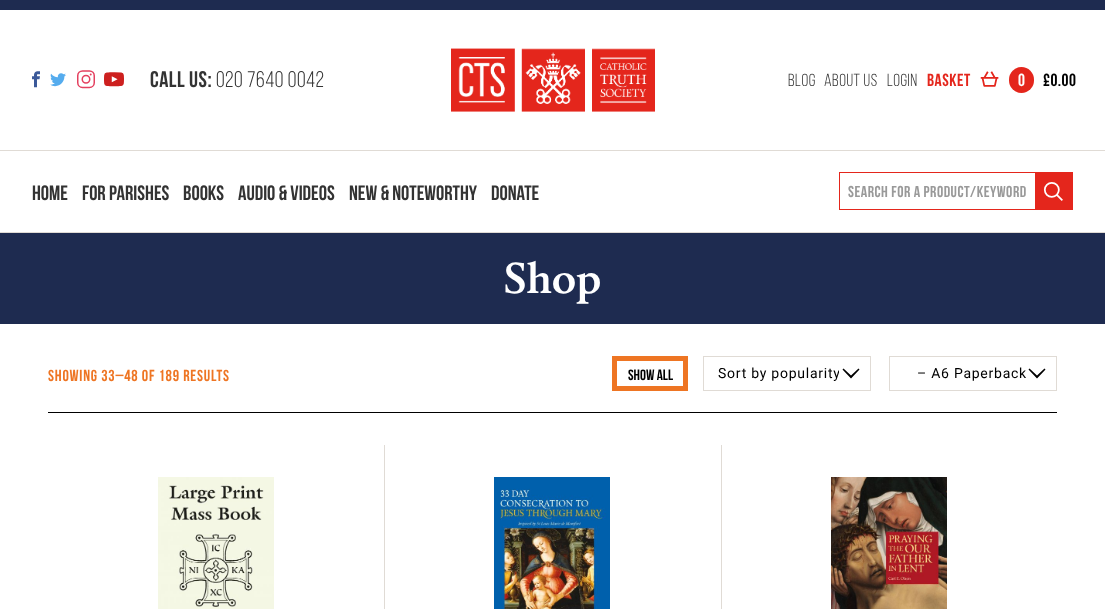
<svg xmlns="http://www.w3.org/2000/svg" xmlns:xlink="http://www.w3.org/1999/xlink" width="1105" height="609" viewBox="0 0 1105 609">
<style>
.cls-1{font:bold 22.5px Bebas Neue;letter-spacing:0.5px;fill:#333333}
.cls-2{font:22.5px Bebas Neue;letter-spacing:0.5px;fill:#333333}
.cls-3{font:17.5px Bebas Neue;letter-spacing:0.5px;fill:#333333}
.cls-4{font:bold 17.5px Bebas Neue;letter-spacing:0.5px;fill:#e4261c}
.cls-5{font:bold 17.5px Bebas Neue;letter-spacing:0.5px;fill:#ffffff}
.cls-6{font:bold 17.5px Bebas Neue;letter-spacing:0.5px;fill:#000000}
.cls-7{font:bold 20.75px Bebas Neue;fill:#333333}
.cls-8{font:bold 15.8px Bebas Neue;letter-spacing:0.5px;fill:#999999}
.cls-9{font:bold 43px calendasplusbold;fill:#ffffff}
.cls-10{font:bold 16px Bebas Neue;letter-spacing:0.8px;fill:#ee7523}
.cls-11{font:bold 15px Bebas Neue;fill:#000000}
.cls-12{font:14px Roboto;letter-spacing:0.75px;fill:#000000}
</style>
<defs>
<clipPath id="clip1"><rect x="718" y="363" width="121" height="21"/></clipPath>
</defs>
<rect width="100%" height="100%" fill="#ffffff"/>
<rect fill="#1e2b50" x="0" y="0" width="1105" height="10"/>
<rect fill="#e0dbd5" x="0" y="232" width="1105" height="1"/>
<image xlink:href="image0.png" x="32" y="71" width="8" height="17"/>
<image xlink:href="image1.png" x="50" y="73" width="16" height="14"/>
<image xlink:href="image2.png" x="77" y="70" width="18" height="19"/>
<image xlink:href="image3.png" x="104" y="72" width="20" height="15"/>
<image xlink:href="image4.png" x="451" y="48" width="204" height="64"/>
<image xlink:href="image5.png" x="980" y="71" width="19" height="16"/>
<rect fill="#e4261c" x="1009" y="67" width="25" height="26" rx="12.5"/>
<rect fill="#e0dbd5" x="0" y="150" width="1105" height="1"/>
<rect fill="none" stroke="#e4261c" x="839.5" y="172.5" width="233" height="37"/>
<rect fill="#e4261c" x="1035" y="173" width="37" height="36"/>
<image xlink:href="image6.png" x="1043" y="182" width="20" height="19"/>
<rect fill="#1e2b50" x="0" y="233" width="1105" height="91"/>
<rect fill="none" stroke="#ee7523" stroke-width="5" x="614.5" y="358.5" width="71" height="30"/>
<path fill="#000000" d="M859.5 369.5L858.5 368.5L851 375.5L843.5 368.5L842.5 369.5L851 378.5Z"/>
<rect fill="none" stroke="#e0dbd5" x="703.5" y="356.5" width="167" height="34"/>
<path fill="#000000" d="M1045.5 369.5L1044.5 368.5L1037 375.5L1029.5 368.5L1028.5 369.5L1037 378.5Z"/>
<rect fill="none" stroke="#e0dbd5" x="889.5" y="356.5" width="167" height="34"/>
<rect fill="#000000" x="48" y="412" width="1009" height="1"/>
<image xlink:href="image7.png" x="158" y="477" width="116" height="132"/>
<rect fill="#e0dbd5" x="384" y="445" width="1" height="164"/>
<image xlink:href="image8.png" x="494" y="477" width="116" height="132"/>
<rect fill="#e0dbd5" x="721" y="445" width="1" height="164"/>
<image xlink:href="image9.png" x="831" y="477" width="116" height="132"/>
<text class="cls-1" x="150" y="87">Call us:</text>
<text class="cls-2" x="216" y="87">020 7640 0042</text>
<text class="cls-3" x="788" y="86">Blog</text>
<text class="cls-3" x="824" y="86">About Us</text>
<text class="cls-3" x="887" y="86">Login</text>
<text class="cls-4" x="927" y="86">Basket</text>
<text class="cls-5" x="1018" y="86">0</text>
<text class="cls-6" x="1043" y="86">£0.00</text>
<text class="cls-7" x="32" y="200">Home</text>
<text class="cls-7" x="82" y="200">For Parishes</text>
<text class="cls-7" x="183" y="200">Books</text>
<text class="cls-7" x="238" y="200">Audio &amp; Videos</text>
<text class="cls-7" x="349" y="200">New &amp; Noteworthy</text>
<text class="cls-7" x="491" y="200">Donate</text>
<text class="cls-8" x="848" y="197">Search for a product/keyword</text>
<text class="cls-9" x="504" y="293">Shop</text>
<text class="cls-10" x="48" y="381">Showing 33–48 of 189 results</text>
<text class="cls-11" x="628" y="380">Show all</text>
<g clip-path="url(#clip1)">
<text class="cls-12" x="718" y="378">Sort by popularity</text>
</g>
<text class="cls-12" x="917" y="378">– A6 Paperback</text>
</svg>
